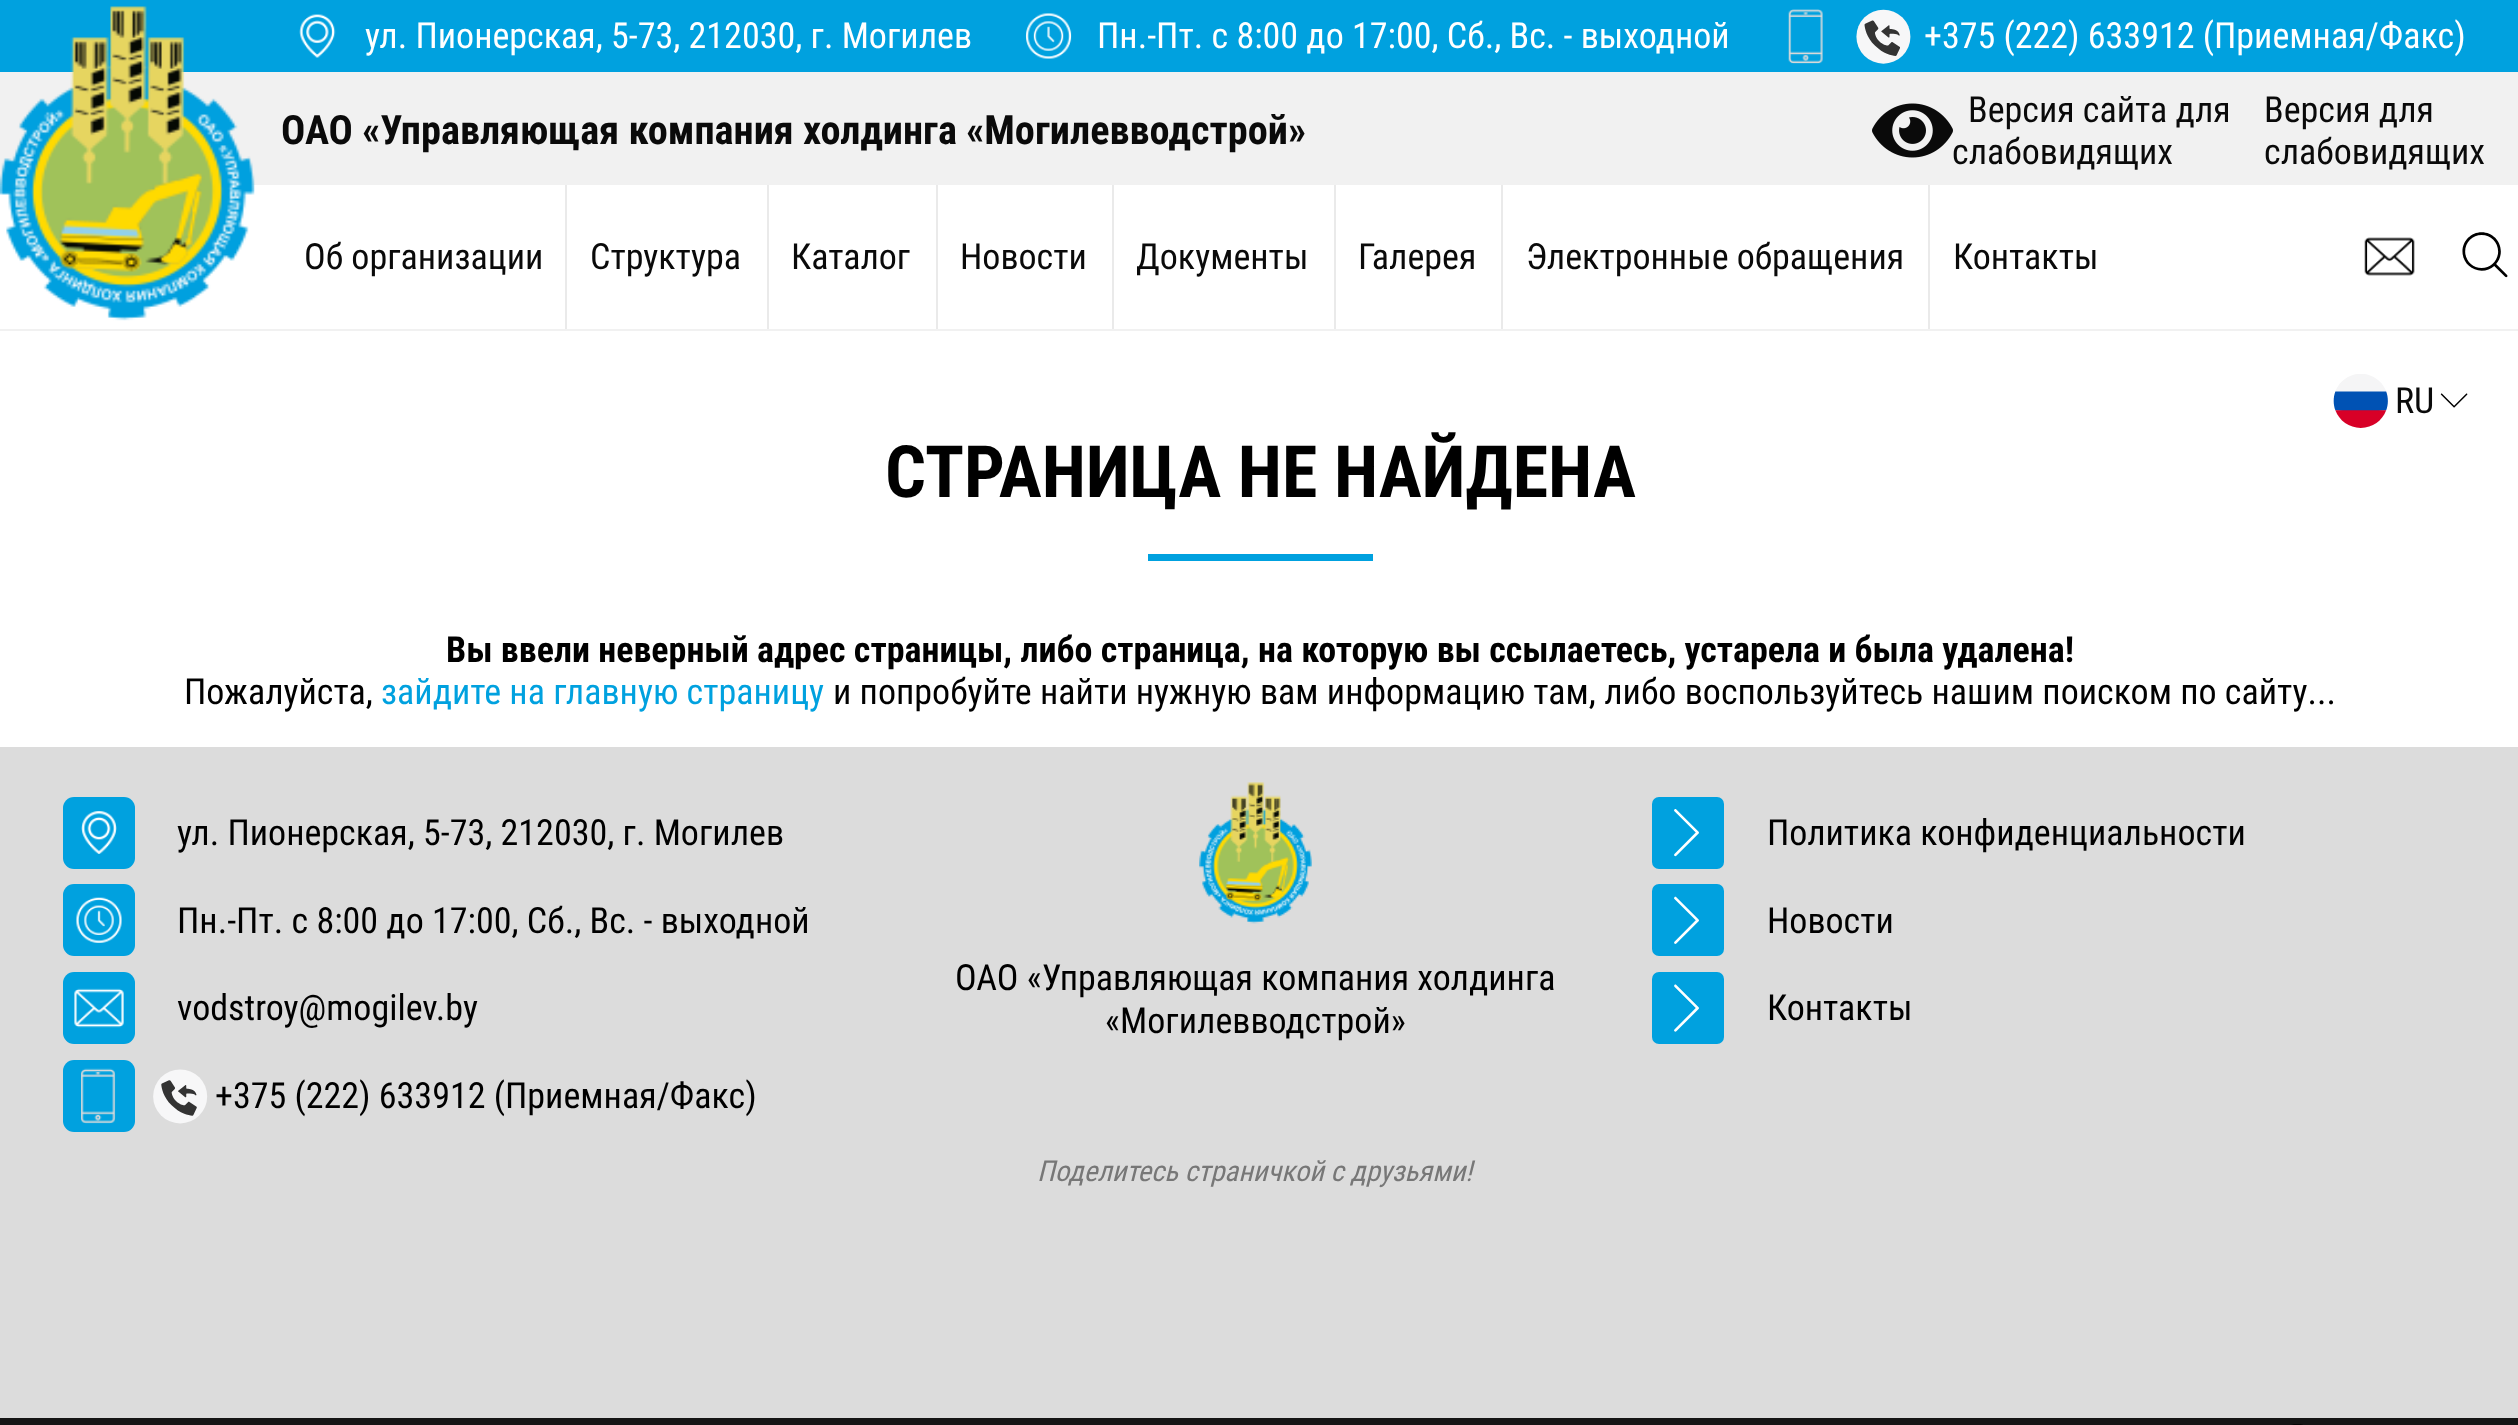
<svg xmlns="http://www.w3.org/2000/svg" xmlns:xlink="http://www.w3.org/1999/xlink" width="2518" height="1425" viewBox="0 0 2518 1425">
<style>
.cls-1{font:36px Roboto Condensed;fill:#ffffff}
.cls-2{font:bold 40.3px Roboto Condensed;fill:#0a0a0a}
.cls-3{font:36px Roboto Condensed;fill:#0a0a0a}
.cls-4{font:bold 72px Roboto Condensed;fill:#000000}
.cls-5{font:bold 36px Roboto Condensed;fill:#000000}
.cls-6{font:36px Roboto Condensed;fill:#000000}
.cls-7{font:36px Roboto Condensed;fill:#00a1df}
.cls-8{font:italic 28.75px Roboto Condensed;fill:#777777}
</style>
<rect width="100%" height="100%" fill="#ffffff"/>
<rect fill="#00a1df" x="0" y="0" width="2518" height="72"/>
<image xlink:href="image0.png" x="299" y="14" width="37" height="44"/>
<image xlink:href="image1.png" x="1025" y="13" width="47" height="46"/>
<image xlink:href="image2.png" x="1788" y="9" width="35" height="55"/>
<image xlink:href="image3.png" x="1856" y="9" width="55" height="55"/>
<rect fill="#f1f1f1" x="0" y="72" width="2518" height="113"/>
<image xlink:href="image4.png" x="1872" y="103" width="81" height="55"/>
<rect fill="#f1f1f1" x="0" y="329" width="2518" height="2"/>
<image xlink:href="image5.png" x="0" y="6" width="255" height="315"/>
<rect fill="#eaeaea" x="565" y="185" width="2" height="144"/>
<rect fill="#eaeaea" x="767" y="185" width="2" height="144"/>
<rect fill="#eaeaea" x="936" y="185" width="2" height="144"/>
<rect fill="#eaeaea" x="1112" y="185" width="2" height="144"/>
<rect fill="#eaeaea" x="1334" y="185" width="2" height="144"/>
<rect fill="#eaeaea" x="1501" y="185" width="2" height="144"/>
<rect fill="#eaeaea" x="1928" y="185" width="2" height="144"/>
<image xlink:href="image6.png" x="2364" y="237" width="51" height="39"/>
<image xlink:href="image7.png" x="2462" y="232" width="46" height="46"/>
<image xlink:href="image8.png" x="2333" y="374" width="55" height="54"/>
<image xlink:href="image9.png" x="2440" y="393" width="28" height="15"/>
<rect fill="#00a1df" x="1148" y="554" width="225" height="7"/>
<rect fill="#dcdcdc" x="0" y="747" width="2518" height="671"/>
<rect fill="#00a1df" x="63" y="797" width="72" height="72" rx="11"/>
<image xlink:href="image10.png" x="81" y="811" width="36" height="43"/>
<rect fill="#00a1df" x="63" y="884" width="72" height="72" rx="11"/>
<image xlink:href="image11.png" x="76" y="897" width="46" height="46"/>
<rect fill="#00a1df" x="63" y="972" width="72" height="72" rx="11"/>
<image xlink:href="image12.png" x="74" y="988" width="50" height="40"/>
<rect fill="#00a1df" x="63" y="1060" width="72" height="72" rx="11"/>
<image xlink:href="image13.png" x="81" y="1068" width="35" height="56"/>
<image xlink:href="image14.png" x="153" y="1069" width="55" height="55"/>
<image xlink:href="image15.png" x="1199" y="782" width="113" height="142"/>
<rect fill="#00a1df" x="1652" y="797" width="72" height="72" rx="7"/>
<image xlink:href="image16.png" x="1674" y="809" width="25" height="48"/>
<rect fill="#00a1df" x="1652" y="884" width="72" height="72" rx="7"/>
<image xlink:href="image17.png" x="1674" y="896" width="25" height="48"/>
<rect fill="#00a1df" x="1652" y="972" width="72" height="72" rx="7"/>
<image xlink:href="image18.png" x="1674" y="984" width="25" height="48"/>
<rect fill="#151515" x="0" y="1418" width="2518" height="7"/>
<image xlink:href="image19.png" x="2291" y="1424" width="12" height="1"/>
<text class="cls-1" x="365" y="48">ул. Пионерская, 5-73, 212030, г. Могилев</text>
<text class="cls-1" x="1097" y="48">Пн.-Пт. с 8:00 до 17:00, Сб., Вс. - выходной</text>
<text class="cls-1" x="1924" y="48">+375 (222) 633912 (Приемная/Факс)</text>
<text class="cls-2" x="281" y="144">ОАО «Управляющая компания холдинга «Могилевводстрой»</text>
<text class="cls-3" x="1968" y="122">Версия сайта для</text>
<text class="cls-3"><tspan x="2264" y="122">Версия для</tspan><tspan x="2264" y="164">слабовидящих</tspan></text>
<text class="cls-3" x="1952" y="164">слабовидящих</text>
<text class="cls-3" x="304" y="269">Об организации</text>
<text class="cls-3" x="590" y="269">Структура</text>
<text class="cls-3" x="791" y="269">Каталог</text>
<text class="cls-3" x="960" y="269">Новости</text>
<text class="cls-3" x="1136" y="269">Документы</text>
<text class="cls-3" x="1358" y="269">Галерея</text>
<text class="cls-3" x="1526" y="269">Электронные обращения</text>
<text class="cls-3" x="1953" y="269">Контакты</text>
<text class="cls-3" x="2395" y="413">RU</text>
<text class="cls-4" x="885" y="497">СТРАНИЦА НЕ НАЙДЕНА</text>
<text class="cls-5" x="446" y="662">Вы ввели неверный адрес страницы, либо страница, на которую вы ссылаетесь, устарела и была удалена!</text>
<text class="cls-6" x="184" y="704">Пожалуйста,</text>
<text class="cls-7" x="381" y="704">зайдите на главную страницу</text>
<text class="cls-6" x="833" y="704">и попробуйте найти нужную вам информацию там, либо воспользуйтесь нашим поиском по сайту...</text>
<text class="cls-6" x="177" y="845">ул. Пионерская, 5-73, 212030, г. Могилев</text>
<text class="cls-6" x="177" y="933">Пн.-Пт. с 8:00 до 17:00, Сб., Вс. - выходной</text>
<text class="cls-6" x="177" y="1020">vodstroy@mogilev.by</text>
<text class="cls-6" x="215" y="1108">+375 (222) 633912 (Приемная/Факс)</text>
<text class="cls-6" x="955" y="990">ОАО «Управляющая компания холдинга</text>
<text class="cls-6" x="1105" y="1033">«Могилевводстрой»</text>
<text class="cls-8" x="1037" y="1181">Поделитесь страничкой с друзьями!</text>
<text class="cls-6" x="1767" y="845">Политика конфиденциальности</text>
<text class="cls-6" x="1767" y="933">Новости</text>
<text class="cls-6" x="1767" y="1020">Контакты</text>
</svg>
